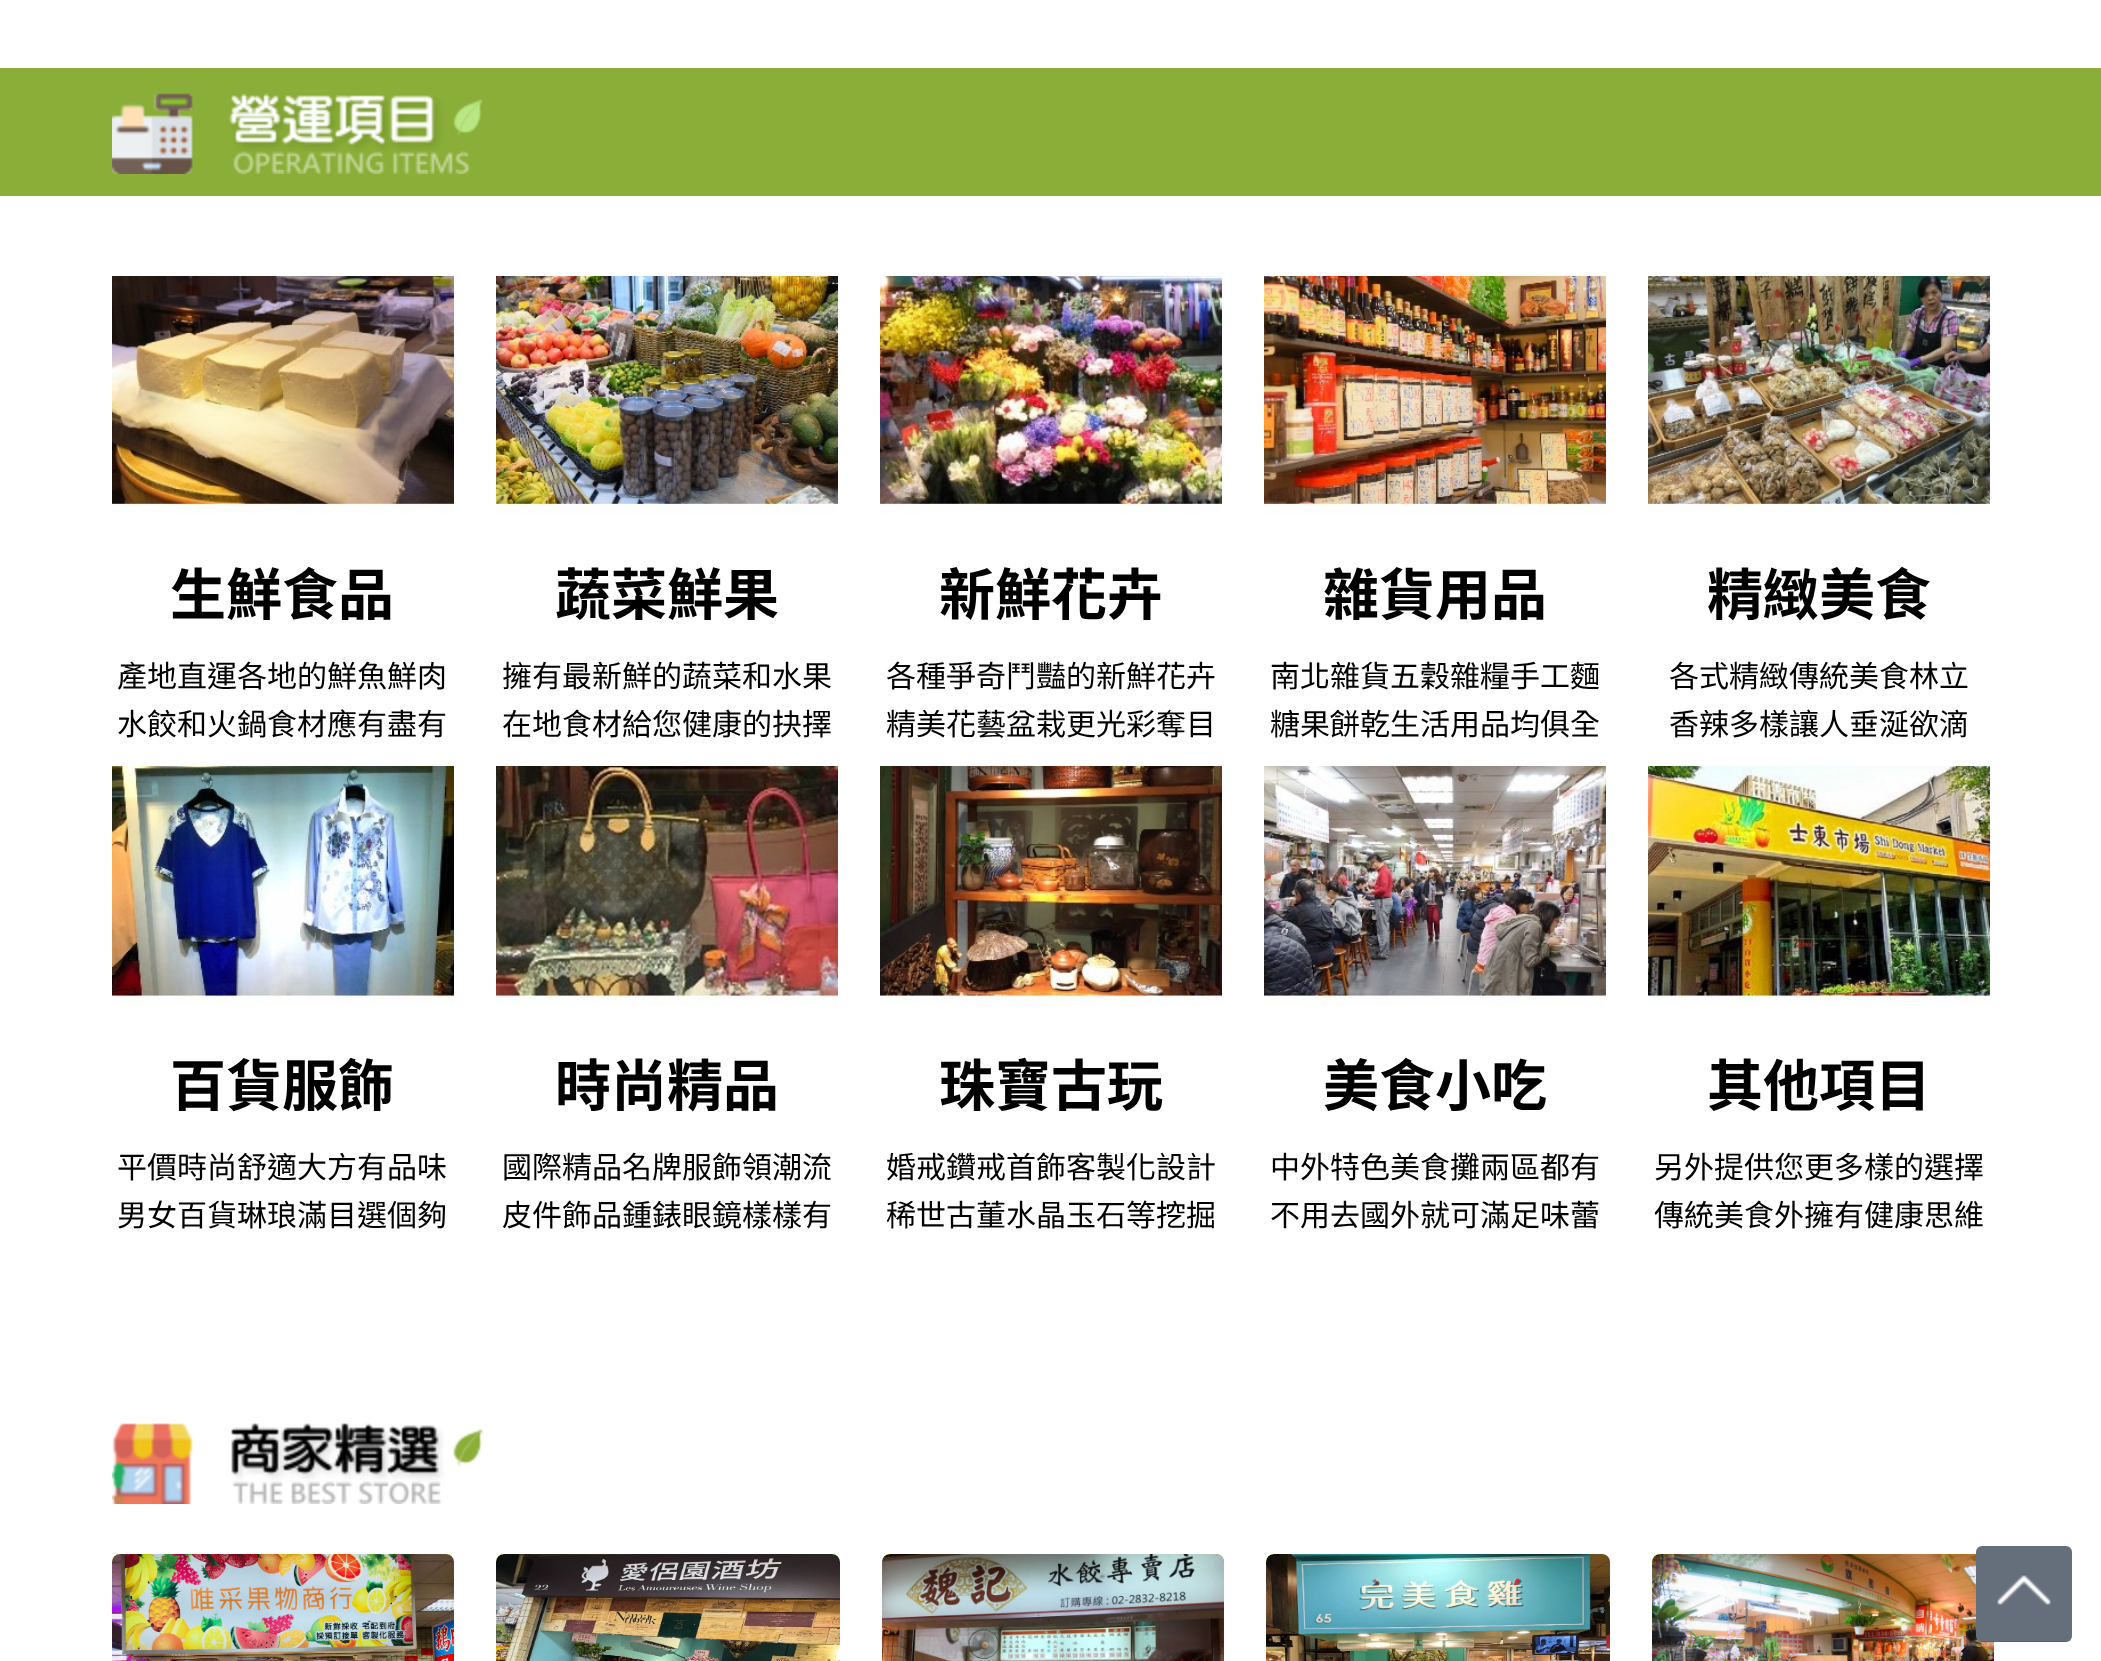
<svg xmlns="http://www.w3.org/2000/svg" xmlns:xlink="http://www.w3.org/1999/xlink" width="2101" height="1661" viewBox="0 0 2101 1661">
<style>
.cls-1{font:bold 56px Noto Sans TC;fill:#010101}
.cls-2{font:30px Noto Sans TC;fill:#010101}
</style>
<rect width="100%" height="100%" fill="#ffffff"/>
<rect fill="#8aae37" x="0" y="68" width="2101" height="128"/>
<image xlink:href="image0.png" x="112" y="93" width="371" height="81"/>
<image xlink:href="image1.png" x="112" y="276" width="342" height="237"/>
<image xlink:href="image2.png" x="496" y="276" width="342" height="238"/>
<image xlink:href="image3.png" x="880" y="276" width="342" height="237"/>
<image xlink:href="image4.png" x="1264" y="276" width="342" height="238"/>
<image xlink:href="image5.png" x="1648" y="276" width="342" height="237"/>
<image xlink:href="image6.png" x="112" y="766" width="342" height="239"/>
<image xlink:href="image7.png" x="496" y="766" width="342" height="239"/>
<image xlink:href="image8.png" x="880" y="766" width="342" height="239"/>
<image xlink:href="image9.png" x="1264" y="766" width="342" height="240"/>
<image xlink:href="image10.png" x="1648" y="766" width="342" height="239"/>
<image xlink:href="image11.png" x="112" y="1423" width="371" height="81"/>
<path fill="#8aae37" d="M120 1554H446C450.5 1554 454 1557.5 454 1562V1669H112V1562C112 1557.5 115.5 1554 120 1554Z"/>
<image xlink:href="image12.png" x="112" y="1554" width="342" height="107"/>
<path fill="#8aae37" d="M504 1554H832C836.5 1554 840 1557.5 840 1562V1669H496V1562C496 1557.5 499.5 1554 504 1554Z"/>
<image xlink:href="image13.png" x="496" y="1554" width="344" height="107"/>
<path fill="#8aae37" d="M890 1554H1216C1220.5 1554 1224 1557.5 1224 1562V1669H882V1562C882 1557.5 885.5 1554 890 1554Z"/>
<image xlink:href="image14.png" x="882" y="1554" width="342" height="107"/>
<path fill="#8aae37" d="M1274 1554H1602C1606.5 1554 1610 1557.5 1610 1562V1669H1266V1562C1266 1557.5 1269.5 1554 1274 1554Z"/>
<image xlink:href="image15.png" x="1266" y="1554" width="344" height="107"/>
<path fill="#8aae37" d="M1660 1554H1986C1990.5 1554 1994 1557.5 1994 1562V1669H1652V1562C1652 1557.5 1655.5 1554 1660 1554Z"/>
<image xlink:href="image16.png" x="1652" y="1554" width="342" height="107"/>
<image xlink:href="image17.png" x="1976" y="1546" width="96" height="96"/>
<text class="cls-1" x="170" y="615">生鮮食品</text>
<text class="cls-2"><tspan x="117" y="687">產地直運各地的鮮魚鮮肉</tspan><tspan x="117" y="735">水餃和火鍋食材應有盡有</tspan></text>
<text class="cls-1" x="555" y="615">蔬菜鮮果</text>
<text class="cls-2"><tspan x="502" y="687">擁有最新鮮的蔬菜和水果</tspan><tspan x="502" y="735">在地食材給您健康的抉擇</tspan></text>
<text class="cls-1" x="939" y="615">新鮮花卉</text>
<text class="cls-2"><tspan x="886" y="687">各種爭奇鬥豔的新鮮花卉</tspan><tspan x="886" y="735">精美花藝盆栽更光彩奪目</tspan></text>
<text class="cls-1" x="1323" y="615">雜貨用品</text>
<text class="cls-2"><tspan x="1270" y="687">南北雜貨五穀雜糧手工麵</tspan><tspan x="1270" y="735">糖果餅乾生活用品均俱全</tspan></text>
<text class="cls-1" x="1707" y="615">精緻美食</text>
<text class="cls-2"><tspan x="1669" y="687">各式精緻傳統美食林立</tspan><tspan x="1669" y="735">香辣多樣讓人垂涎欲滴</tspan></text>
<text class="cls-1" x="170" y="1106">百貨服飾</text>
<text class="cls-2"><tspan x="117" y="1178">平價時尚舒適大方有品味</tspan><tspan x="117" y="1226">男女百貨琳琅滿目選個夠</tspan></text>
<text class="cls-1" x="555" y="1106">時尚精品</text>
<text class="cls-2"><tspan x="502" y="1178">國際精品名牌服飾領潮流</tspan><tspan x="502" y="1226">皮件飾品鍾錶眼鏡樣樣有</tspan></text>
<text class="cls-1" x="939" y="1106">珠寶古玩</text>
<text class="cls-2"><tspan x="886" y="1178">婚戒鑽戒首飾客製化設計</tspan><tspan x="886" y="1226">稀世古董水晶玉石等挖掘</tspan></text>
<text class="cls-1" x="1323" y="1106">美食小吃</text>
<text class="cls-2"><tspan x="1270" y="1178">中外特色美食攤兩區都有</tspan><tspan x="1270" y="1226">不用去國外就可滿足味蕾</tspan></text>
<text class="cls-1" x="1707" y="1106">其他項目</text>
<text class="cls-2"><tspan x="1654" y="1178">另外提供您更多樣的選擇</tspan><tspan x="1654" y="1226">傳統美食外擁有健康思維</tspan></text>
</svg>
